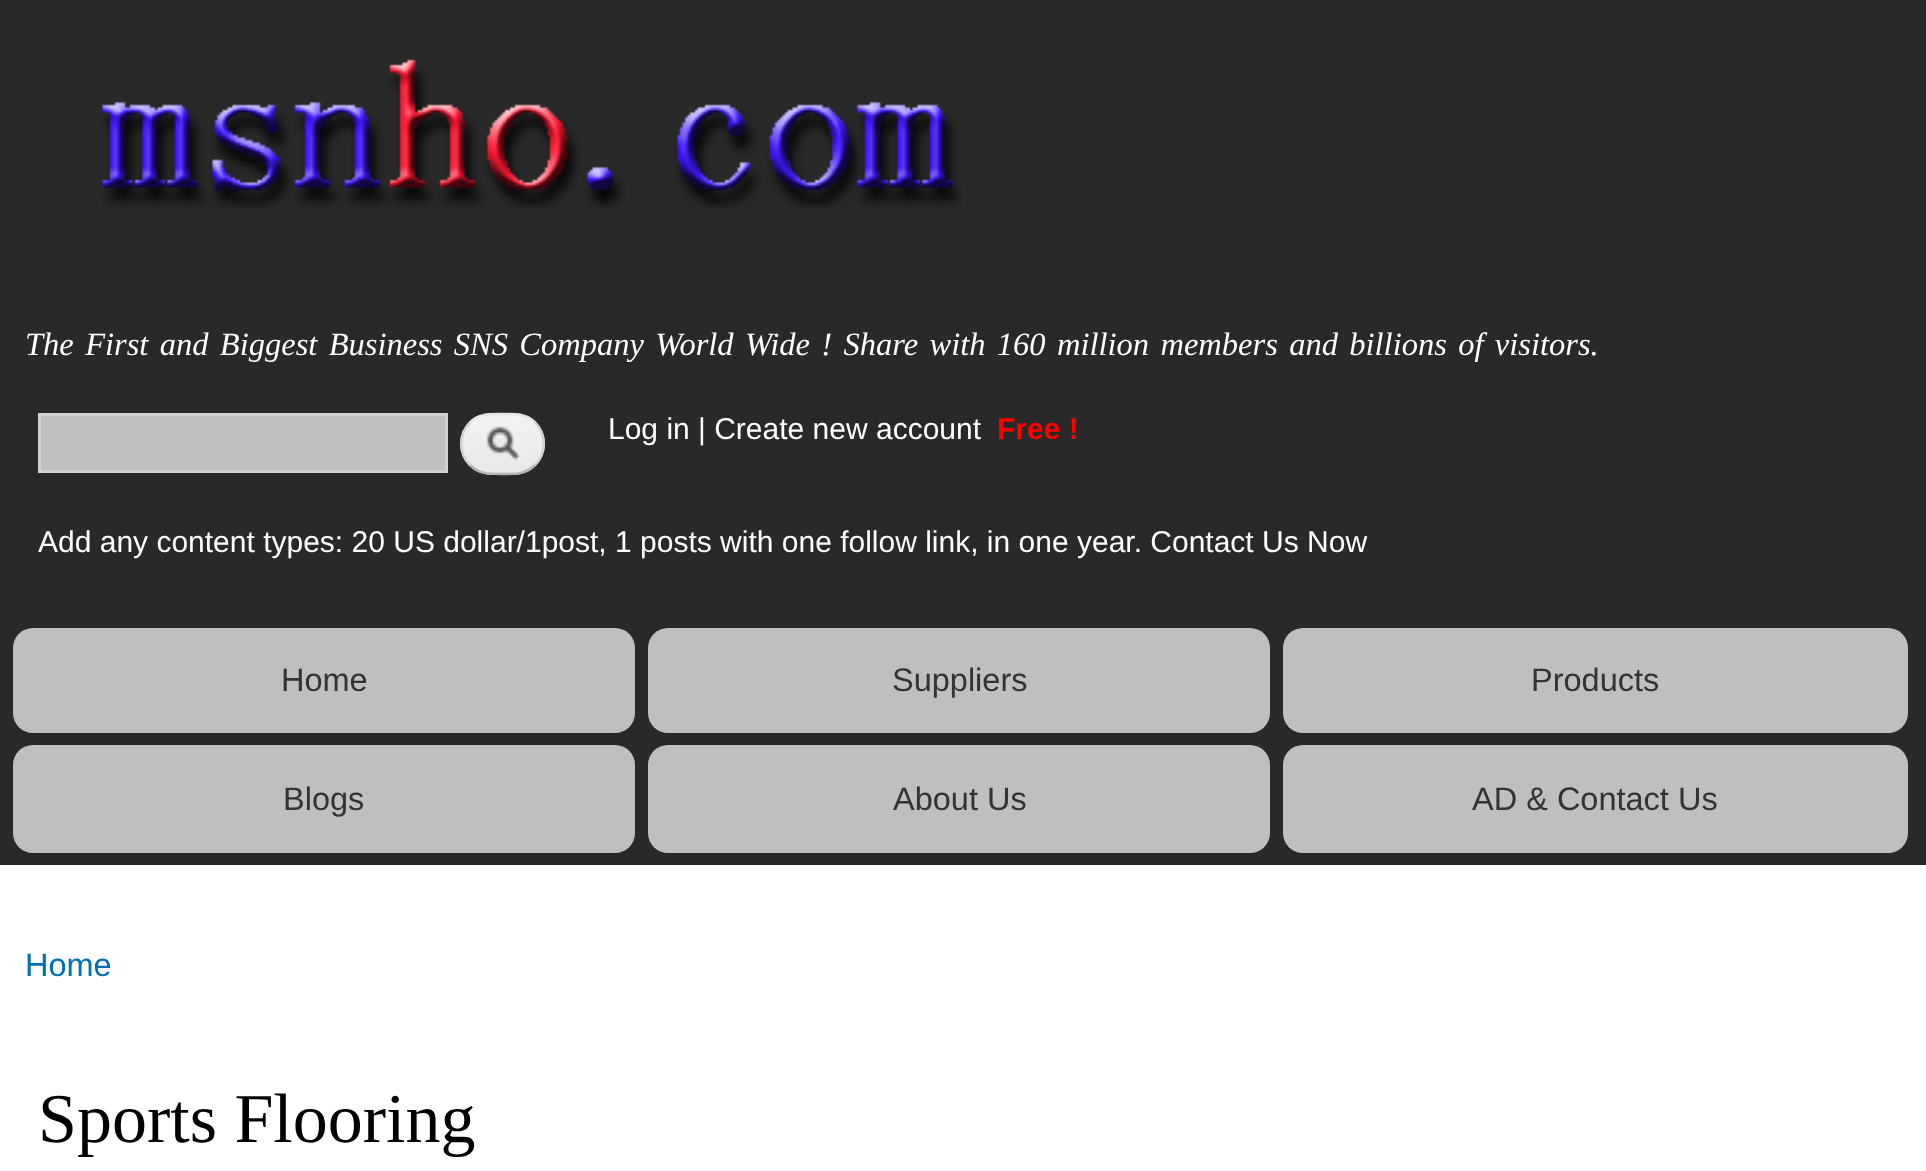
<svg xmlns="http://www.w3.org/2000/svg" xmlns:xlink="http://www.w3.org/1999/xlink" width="1926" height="1171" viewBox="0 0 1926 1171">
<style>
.cls-1{font:italic 32.5px Liberation Serif;fill:#fffeff}
.cls-2{font:30px Liberation Sans;fill:#fffeff}
.cls-3{font:bold 30px Liberation Sans;fill:#ff0000}
.cls-4{font:32.5px Liberation Sans;fill:#333333}
.cls-5{font:32.5px Liberation Sans;fill:#0070b3}
.cls-6{font:70px Liberation Serif;fill:#000000}
</style>
<rect width="100%" height="100%" fill="#ffffff"/>
<rect fill="#292929" x="0" y="0" width="1926" height="865"/>
<image xlink:href="image0.png" x="101" y="59" width="861" height="150"/>
<rect fill="#bfbfbf" stroke="#d2d2d2" stroke-width="3" x="39.5" y="414.5" width="407" height="57"/>
<image xlink:href="image1.png" x="460" y="415" width="85" height="60"/>
<path fill="none" stroke="#e4e4e4" stroke-width="2.5" d="M470 422.5C479.5 413 490 414 502.5 414C515 414 525.5 413 535 422.5"/>
<path fill="none" stroke="#d2d2d2" stroke-width="2.5" d="M535 422.5C546.5 434 546.5 453.5 535 465"/>
<path fill="none" stroke="#b4b4b4" stroke-width="2.5" d="M535 465C525.5 474.5 515 474 502.5 474C490 474 479.5 474.5 470 465"/>
<path fill="none" stroke="#d2d2d2" stroke-width="2.5" d="M470 465C458.5 453.5 458.5 434 470 422.5"/>
<rect fill="#bfbfbf" x="13" y="628" width="622" height="105" rx="20"/>
<rect fill="#bfbfbf" x="648" y="628" width="622" height="105" rx="20"/>
<rect fill="#bfbfbf" x="1283" y="628" width="625" height="105" rx="20"/>
<rect fill="#bfbfbf" x="13" y="745" width="622" height="108" rx="20"/>
<rect fill="#bfbfbf" x="648" y="745" width="622" height="108" rx="20"/>
<rect fill="#bfbfbf" x="1283" y="745" width="625" height="108" rx="20"/>
<text class="cls-1" x="25" y="355" word-spacing="3.25">The First and Biggest Business SNS Company World Wide ! Share with 160 million members and billions of visitors.</text>
<text class="cls-2" x="608" y="439">Log in | Create new account</text>
<text class="cls-3" x="997" y="439">Free !</text>
<text class="cls-2" x="38" y="552">Add any content types: 20 US dollar/1post, 1 posts with one follow link, in one year. Contact Us Now</text>
<text class="cls-4" x="281" y="691">Home</text>
<text class="cls-4" x="892" y="691">Suppliers</text>
<text class="cls-4" x="1531" y="691">Products</text>
<text class="cls-4" x="283" y="810">Blogs</text>
<text class="cls-4" x="893" y="810">About Us</text>
<text class="cls-4" x="1472" y="810">AD &amp; Contact Us</text>
<text class="cls-5" x="25" y="976">Home</text>
<text class="cls-6" x="38" y="1142">Sports Flooring</text>
</svg>
